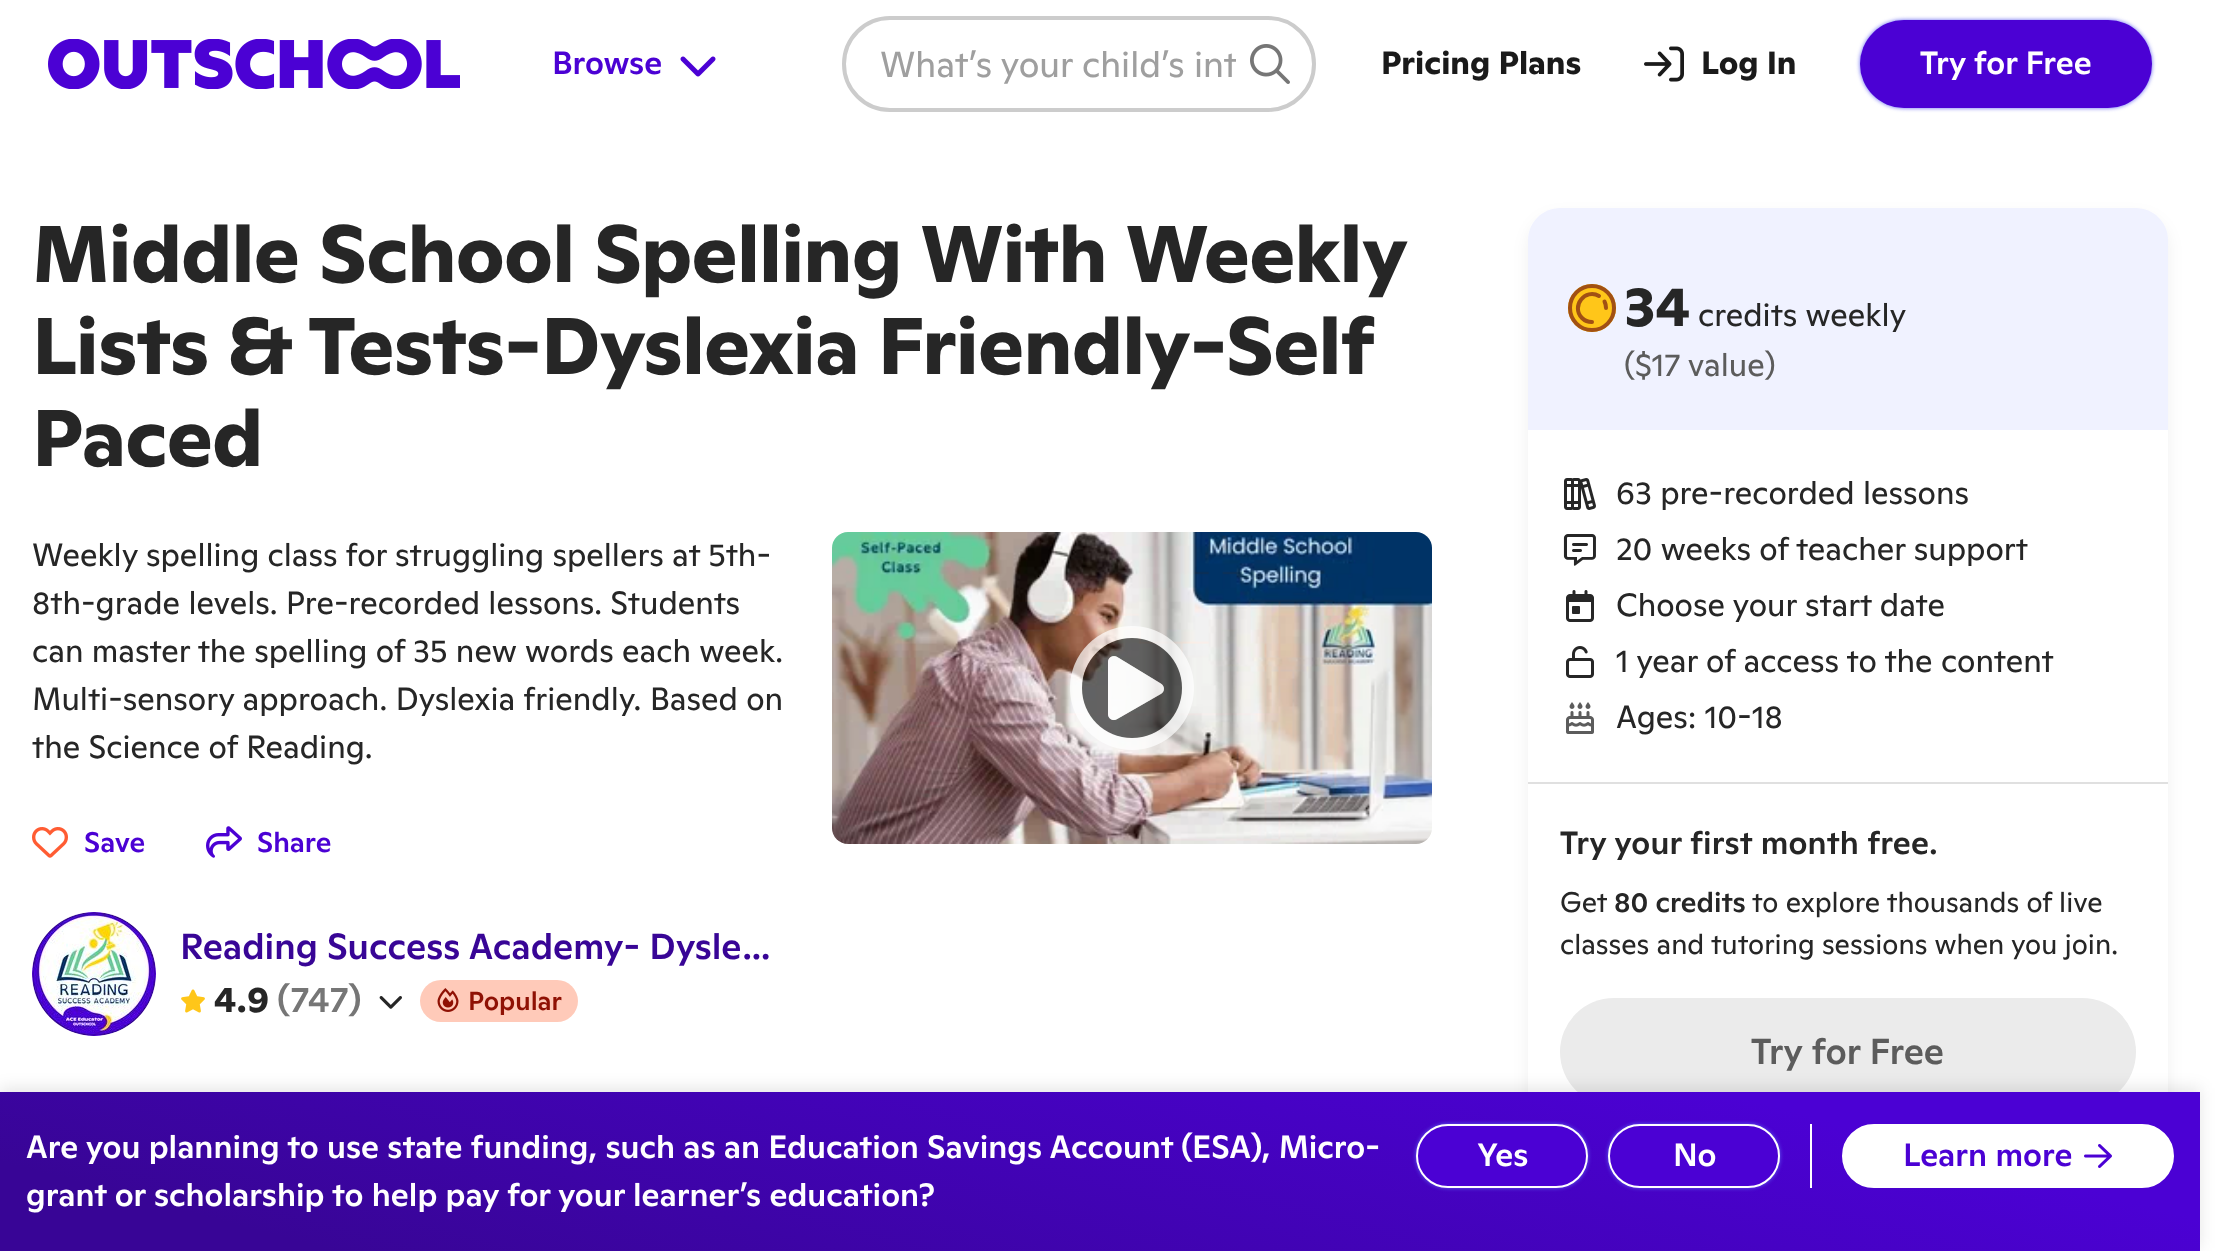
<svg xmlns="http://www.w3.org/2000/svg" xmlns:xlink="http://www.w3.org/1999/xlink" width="2230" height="1251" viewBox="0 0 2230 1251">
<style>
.cls-1{font:500 32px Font;fill:#4b01d4}
.cls-2{font:36px Font;fill:#9f9f9f}
.cls-3{font:bold 32px Font;fill:#1a1a1a}
.cls-4{font:500 32px Font;fill:#ffffff}
.cls-5{font:bold 80px Font;letter-spacing:-0.8px;fill:#262626}
.cls-6{font:32px Font;fill:#262626}
.cls-7{font:500 28px Font;fill:#4b01d4}
.cls-8{font:500 36px Font;fill:#380596}
.cls-9{font:bold 36px Font;letter-spacing:0.5px;fill:#262626}
.cls-10{font:500 36px Font;letter-spacing:0.5px;fill:#767676}
.cls-11{font:500 26px Font;fill:#8f1104}
.cls-12{font:bold 56px Font;fill:#262626}
.cls-13{font:32px Font;fill:#5c5c5c}
.cls-14{font:500 32px Font;letter-spacing:0.2px;fill:#262626}
.cls-15{font:28px Font;fill:#262626}
.cls-16{font:500 28px Font;fill:#262626}
.cls-17{font:500 36px Font;fill:#5c5c5c}
</style>
<defs>
<clipPath id="clip1"><path d="M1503 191H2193V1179H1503ZM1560 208H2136C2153.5 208 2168 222.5 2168 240V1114C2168 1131.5 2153.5 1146 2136 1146H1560C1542.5 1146 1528 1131.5 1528 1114V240C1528 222.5 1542.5 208 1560 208Z" clip-rule="evenodd"/></clipPath>
<linearGradient id="g1" gradientUnits="userSpaceOnUse" x1="1194" y1="822" x2="1006" y2="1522"><stop offset="0.17" stop-color="#4b01d4"/><stop offset="0.88" stop-color="#380596"/></linearGradient>
<clipPath id="clip2"><rect x="880" y="42" width="356" height="46"/></clipPath>
</defs>
<rect width="100%" height="100%" fill="#ffffff"/>
<image xlink:href="image0.png" x="48" y="39" width="412" height="50"/>
<image xlink:href="image1.png" x="680" y="56" width="36" height="21"/>
<rect fill="none" stroke="#cccccc" stroke-width="4" x="844" y="18" width="470" height="92" rx="46"/>
<image xlink:href="image2.png" x="1250" y="44" width="40" height="40"/>
<image xlink:href="image3.png" x="1644" y="46" width="40" height="36"/>
<rect fill="#6161f2" filter="blur(2px)" x="1860" y="20" width="292" height="88" rx="44"/>
<rect fill="#4b01d4" x="1860" y="20" width="292" height="88" rx="44"/>
<image xlink:href="image4.png" x="32" y="827" width="36" height="31"/>
<image xlink:href="image5.png" x="206" y="826" width="36" height="32"/>
<image xlink:href="image6.png" x="32" y="912" width="124" height="124"/>
<circle fill="none" stroke="#000000" stroke-opacity="0.1" stroke-width="2" cx="94" cy="974" r="61"/>
<image xlink:href="image7.png" x="181" y="989" width="24" height="24"/>
<image xlink:href="image8.png" x="379" y="996" width="23" height="13"/>
<rect fill="#ffcab9" x="420" y="980" width="158" height="42" rx="21"/>
<image xlink:href="image9.png" x="437" y="988" width="22" height="24"/>
<image xlink:href="image10.png" x="832" y="532" width="600" height="312"/>
<image xlink:href="image11.png" x="1070" y="626" width="124" height="124"/>
<g clip-path="url(#clip1)">
<rect fill="#000000" fill-opacity="0.06" filter="blur(8px)" x="1528" y="216" width="640" height="938" rx="32"/>
</g>
<path fill="#f0f2ff" d="M1560 208H2136C2153.5 208 2168 222.5 2168 240V430H1528V240C1528 222.5 1542.5 208 1560 208Z"/>
<circle fill="#ffc619" cx="1592" cy="308" r="24"/>
<circle fill="none" stroke="#a15014" stroke-width="4" cx="1592" cy="308" r="22"/>
<path fill="none" stroke="#a15014" stroke-width="4" stroke-linecap="round" stroke-linejoin="round" d="M1606 308C1606 305.5 1605.5 303.5 1604.5 301.5M1592 322C1588.5 322 1584.5 320.5 1582 318C1570.5 306 1585.5 288 1599 296"/>
<image xlink:href="image12.png" x="1564" y="478" width="32" height="32"/>
<image xlink:href="image13.png" x="1563" y="534" width="33" height="32"/>
<image xlink:href="image14.png" x="1566" y="590" width="28" height="32"/>
<image xlink:href="image15.png" x="1566" y="646" width="28" height="32"/>
<image xlink:href="image16.png" x="1566" y="702" width="28" height="32"/>
<rect fill="#e0e0e0" x="1528" y="782" width="640" height="2"/>
<rect fill="#ebebeb" x="1560" y="998" width="576" height="108" rx="54"/>
<rect fill="#000000" fill-opacity="0.1" filter="blur(8px)" x="0" y="1088" width="2200" height="160"/>
<rect fill="url(#g1)" x="0" y="1092" width="2200" height="159"/>
<rect fill="#6161f2" filter="blur(2px)" x="1416" y="1124" width="172" height="64" rx="32"/>
<rect fill="#4b01d4" stroke="#ffffff" stroke-width="2" x="1417" y="1125" width="170" height="62" rx="31"/>
<rect fill="#6161f2" filter="blur(2px)" x="1608" y="1124" width="172" height="64" rx="32"/>
<rect fill="#4b01d4" stroke="#ffffff" stroke-width="2" x="1609" y="1125" width="170" height="62" rx="31"/>
<rect fill="#ffffff" x="1810" y="1124" width="2" height="64"/>
<rect fill="#ffffff" stroke="#ffffff" stroke-width="4" x="1844" y="1126" width="328" height="60" rx="30"/>
<image xlink:href="image17.png" x="2084" y="1144" width="28" height="24"/>
<text class="cls-1" x="552" y="74">Browse</text>
<g clip-path="url(#clip2)">
<text class="cls-2" x="880" y="77">What’s your child’s int</text>
</g>
<text class="cls-3" x="1381" y="74">Pricing Plans</text>
<text class="cls-3" x="1701" y="74">Log In</text>
<text class="cls-4" x="1920" y="74">Try for Free</text>
<text class="cls-5"><tspan x="32" y="282">Middle School Spelling With Weekly</tspan><tspan x="32" y="374" word-spacing="-0.5">Lists &amp; Tests-Dyslexia Friendly-Self</tspan><tspan x="32" y="466">Paced</tspan></text>
<text class="cls-6"><tspan x="32" y="566">Weekly spelling class for struggling spellers at 5th-</tspan><tspan x="32" y="614">8th-grade levels. Pre-recorded lessons. Students</tspan><tspan x="32" y="662">can master the spelling of 35 new words each week.</tspan><tspan x="32" y="710">Multi-sensory approach. Dyslexia friendly. Based on</tspan><tspan x="32" y="758">the Science of Reading.</tspan></text>
<text class="cls-7" x="84" y="852">Save</text>
<text class="cls-7" x="257" y="852">Share</text>
<text class="cls-8" x="180" y="959">Reading Success Academy- Dysle…</text>
<text class="cls-9" x="214" y="1012">4.9</text>
<text class="cls-10" x="277" y="1012">(747)</text>
<text class="cls-11" x="468" y="1010">Popular</text>
<text class="cls-12" x="1624" y="326">34</text>
<text class="cls-6" x="1698" y="326">credits weekly</text>
<text class="cls-13" x="1624" y="376">($17 value)</text>
<text class="cls-6"><tspan x="1616" y="504">63 pre-recorded lessons</tspan><tspan x="1616" y="560">20 weeks of teacher support</tspan><tspan x="1616" y="616">Choose your start date</tspan><tspan x="1616" y="672">1 year of access to the content</tspan><tspan x="1616" y="728">Ages: 10-18</tspan></text>
<text class="cls-14" x="1560" y="854">Try your first month free.</text>
<text class="cls-15" x="1560" y="912">Get</text>
<text class="cls-16" x="1614" y="912">80 credits</text>
<text class="cls-15" x="1752" y="912">to explore thousands of live</text>
<text class="cls-15" x="1560" y="954">classes and tutoring sessions when you join.</text>
<text class="cls-17" x="1751" y="1064">Try for Free</text>
<text class="cls-4"><tspan x="26" y="1158">Are you planning to use state funding, such as an Education Savings Account (ESA), Micro-</tspan><tspan x="26" y="1206">grant or scholarship to help pay for your learner’s education?</tspan></text>
<text class="cls-4" x="1477" y="1166">Yes</text>
<text class="cls-4" x="1673" y="1166">No</text>
<text class="cls-1" x="1903" y="1166">Learn more</text>
</svg>
